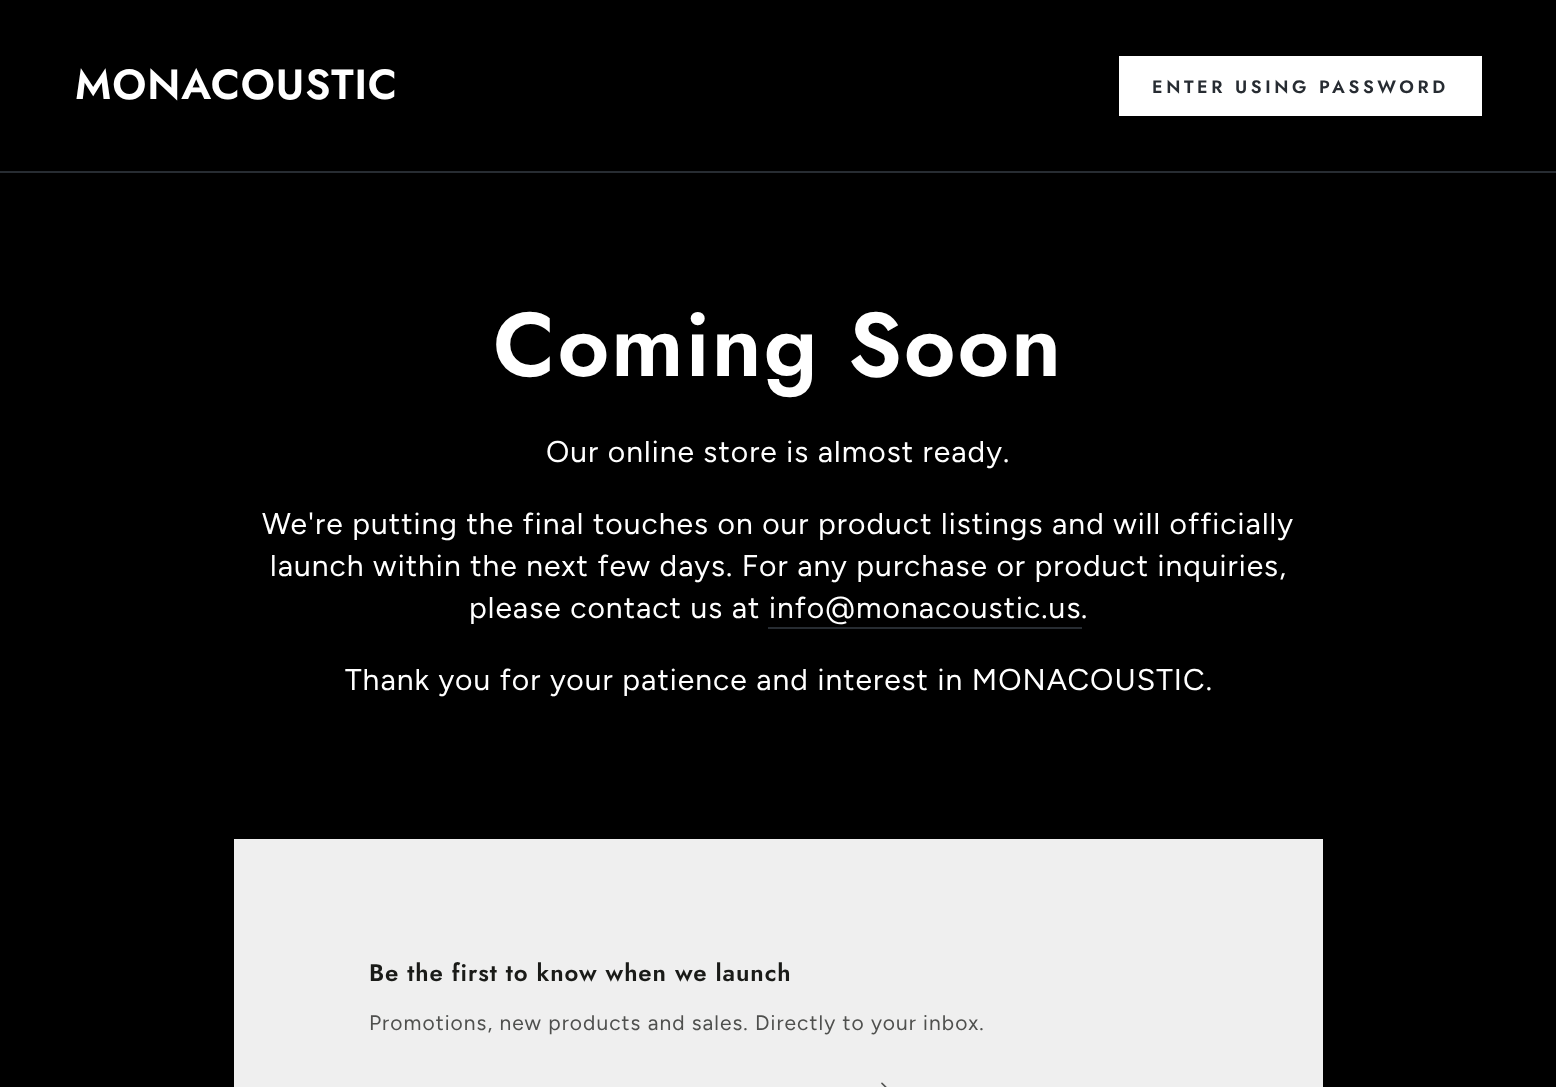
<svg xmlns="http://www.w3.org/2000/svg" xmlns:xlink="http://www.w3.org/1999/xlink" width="1556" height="1087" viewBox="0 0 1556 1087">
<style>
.cls-1{font:600 42px Jost;letter-spacing:0.9px;fill:#ffffff}
.cls-2{font:600 18px Jost;letter-spacing:3.6px;fill:#272c32}
.cls-3{font:600 90px Jost;letter-spacing:1.75px;fill:#ffffff}
.cls-4{font:30px Figtree;letter-spacing:1.05px;fill:#ffffff}
.cls-5{font:600 24px Jost;letter-spacing:0.9px;fill:#1a1b18}
.cls-6{font:21px Figtree;letter-spacing:1.05px;fill:#4f504e}
</style>
<rect width="100%" height="100%" fill="#000000"/>
<rect fill="#ffffff" x="1119" y="56" width="363" height="60"/>
<rect fill="#272c32" x="0" y="171" width="1556" height="2"/>
<rect fill="#272c32" x="768" y="627" width="314" height="2"/>
<rect fill="#efefef" x="234" y="839" width="1089" height="248"/>
<image xlink:href="image0.png" x="881" y="1082" width="6" height="5"/>
<text class="cls-1" x="75" y="99">MONACOUSTIC</text>
<text class="cls-2" x="1152" y="93">ENTER USING PASSWORD</text>
<text class="cls-3" x="493" y="376">Coming Soon</text>
<text class="cls-4" x="546" y="462">Our online store is almost ready.</text>
<text class="cls-4" x="262" y="534">We're putting the final touches on our product listings and will officially</text>
<text class="cls-4" x="270" y="576">launch within the next few days. For any purchase or product inquiries,</text>
<text class="cls-4" x="469" y="618">please contact us at info@monacoustic.us</text>
<text class="cls-4" x="1081" y="618">.</text>
<text class="cls-4" x="345" y="690">Thank you for your patience and interest in MONACOUSTIC.</text>
<text class="cls-5" x="369" y="981">Be the first to know when we launch</text>
<text class="cls-6" x="369" y="1030">Promotions, new products and sales. Directly to your inbox.</text>
</svg>
